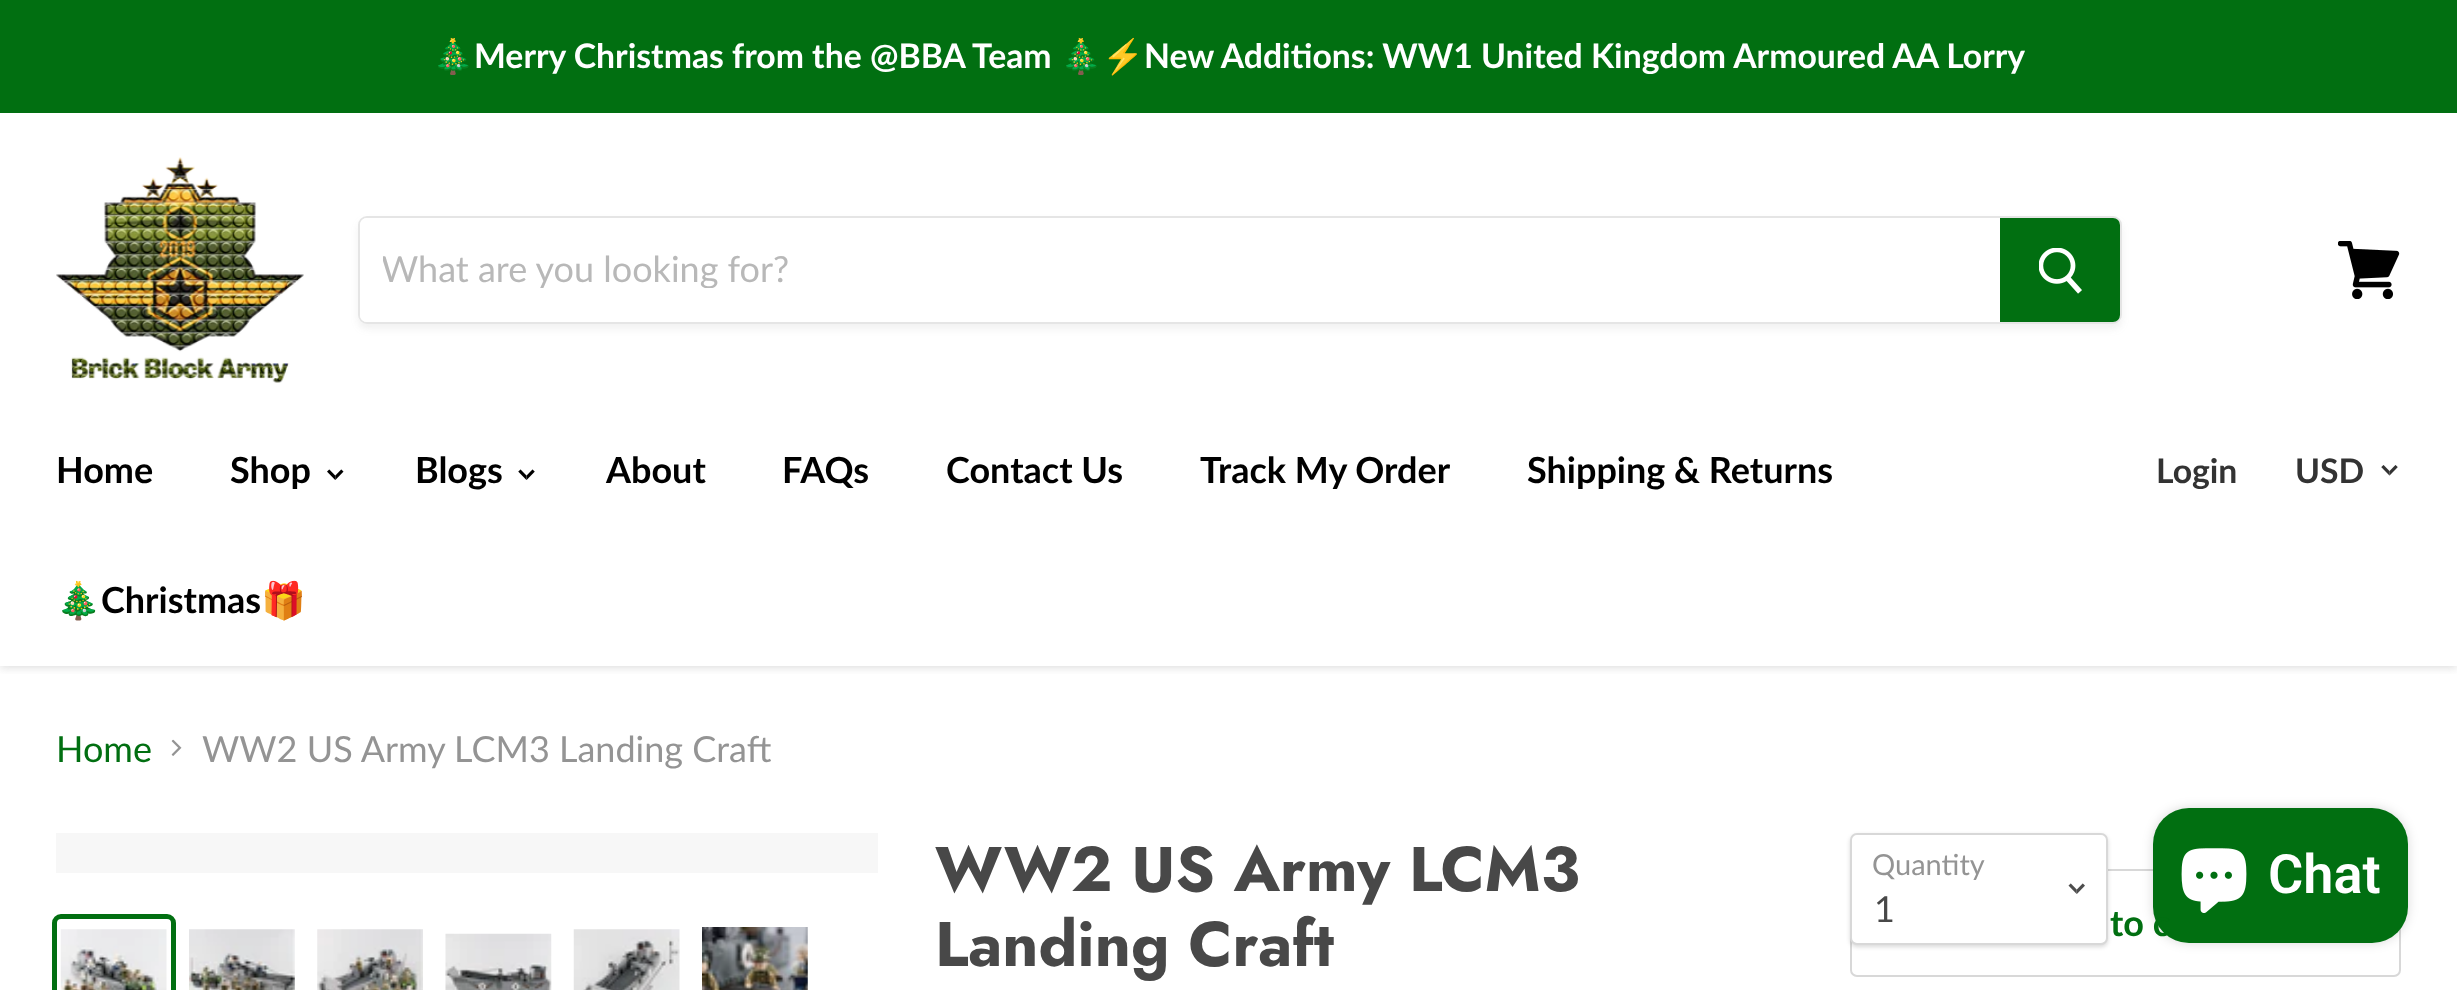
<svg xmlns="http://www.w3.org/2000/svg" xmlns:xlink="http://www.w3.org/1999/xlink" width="2457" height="990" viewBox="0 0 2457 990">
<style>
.cls-1{font:bold 33.75px Noto Color Emoji;fill:#ffffff}
.cls-2{font:bold 33.75px Lato;fill:#ffffff}
.cls-3{font:36px Lato;fill:#b8b8b8}
.cls-4{font:bold 36px Lato;fill:#000000}
.cls-5{font:bold 36px Noto Color Emoji;fill:#000000}
.cls-6{font:bold 33.75px Lato;fill:#333333}
.cls-7{font:36px Lato;fill:#016f11}
.cls-8{font:36px Lato;fill:#949494}
.cls-9{font:bold 63px Jost;fill:#484848}
.cls-10{font:29px Lato;fill:#949494}
.cls-11{font:36px Lato;fill:#484848}
.cls-12{font:bold 36px Lato;fill:#016f11}
.cls-13{font:600 54px Roboto;fill:#ffffff}
</style>
<defs>
<clipPath id="clip1"><rect x="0" y="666" width="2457" height="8"/></clipPath>
<clipPath id="clip2"><path d="M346 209H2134V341H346ZM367 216H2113C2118 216 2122 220 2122 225V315C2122 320 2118 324 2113 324H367C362 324 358 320 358 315V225C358 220 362 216 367 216Z" clip-rule="evenodd"/></clipPath>
<clipPath id="clip3"><rect x="383" y="245" width="1595" height="43"/></clipPath>
</defs>
<rect width="100%" height="100%" fill="#ffffff"/>
<g clip-path="url(#clip1)">
<rect fill="#7f7f7f" fill-opacity="0.25" filter="blur(4.5px)" x="0" y="115" width="2457" height="553"/>
</g>
<rect fill="#016f11" x="0" y="0" width="2457" height="113"/>
<image xlink:href="image0.png" x="56" y="157" width="248" height="226"/>
<g clip-path="url(#clip2)">
<rect fill="#7f7f7f" fill-opacity="0.11" filter="blur(3.5px)" x="358" y="221" width="1764" height="108" rx="9"/>
</g>
<rect fill="none" stroke="#7f7f7f" stroke-opacity="0.2" stroke-width="2" x="359" y="217" width="1762" height="106" rx="8"/>
<path fill="#ffffff" d="M367 218H2000V322H367C363 322 360 319 360 315V225C360 221 363 218 367 218Z"/>
<path fill="#016f11" stroke="#016f11" stroke-width="2" d="M2001 219H2113C2116.5 219 2119 221.5 2119 225V315C2119 318.5 2116.5 321 2113 321H2001Z"/>
<image xlink:href="image1.png" x="2039" y="248" width="43" height="46"/>
<image xlink:href="image2.png" x="2338" y="241" width="62" height="58"/>
<image xlink:href="image3.png" x="327" y="469" width="17" height="11"/>
<image xlink:href="image4.png" x="518" y="469" width="17" height="11"/>
<image xlink:href="image5.png" x="2381" y="465" width="17" height="11"/>
<image xlink:href="image6.png" x="171" y="739" width="11" height="17"/>
<rect fill="#f7f7f7" x="56" y="833" width="822" height="40"/>
<rect fill="none" stroke="#016f11" stroke-width="5" x="54.5" y="916.5" width="119" height="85" rx="6.5"/>
<image xlink:href="image7.png" x="60" y="929" width="107" height="61"/>
<image xlink:href="image8.png" x="189" y="929" width="106" height="61"/>
<image xlink:href="image9.png" x="317" y="929" width="106" height="61"/>
<image xlink:href="image10.png" x="445" y="933" width="107" height="57"/>
<image xlink:href="image11.png" x="573" y="929" width="107" height="61"/>
<image xlink:href="image12.png" x="702" y="927" width="106" height="63"/>
<rect fill="none" stroke="#d8d8d8" stroke-width="2" x="1851" y="870" width="549" height="106" rx="6"/>
<rect fill="#000000" fill-opacity="0.15" filter="blur(2px)" x="1850" y="835" width="258" height="112" rx="7"/>
<rect fill="#ffffff" stroke="#d8d8d8" stroke-width="2" x="1851" y="834" width="256" height="110" rx="6"/>
<image xlink:href="image13.png" x="2068" y="883" width="17" height="11"/>
<rect fill="#000000" fill-opacity="0.15" filter="blur(5.5px)" x="2153" y="808" width="255" height="135" rx="36"/>
<rect fill="#016f11" x="2153" y="808" width="255" height="135" rx="36"/>
<image xlink:href="image14.png" x="2181" y="848" width="66" height="65"/>
<text class="cls-1" x="432" y="68">🎄</text>
<text class="cls-2" x="474" y="68">Merry Christmas from the @BBA Team</text>
<text class="cls-1" x="1060" y="68">🎄⚡</text>
<text class="cls-2" x="1144" y="68">New Additions: WW1 United Kingdom Armoured AA Lorry</text>
<g clip-path="url(#clip3)">
<text class="cls-3" x="381" y="282">What are you looking for?</text>
</g>
<text class="cls-4" x="56" y="483">Home</text>
<text class="cls-4" x="230" y="483">Shop</text>
<text class="cls-4" x="415" y="483">Blogs</text>
<text class="cls-4" x="606" y="483">About</text>
<text class="cls-4" x="782" y="483">FAQs</text>
<text class="cls-4" x="946" y="483">Contact Us</text>
<text class="cls-4" x="1200" y="483">Track My Order</text>
<text class="cls-4" x="1527" y="483">Shipping &amp; Returns</text>
<text class="cls-5" x="56" y="613">🎄</text>
<text class="cls-4" x="101" y="613">Christmas</text>
<text class="cls-5" x="261" y="613">🎁</text>
<text class="cls-6" x="2156" y="483">Login</text>
<text class="cls-6" x="2295" y="483">USD</text>
<text class="cls-7" x="56" y="762">Home</text>
<text class="cls-8" x="202" y="762">WW2 US Army LCM3 Landing Craft</text>
<text class="cls-9"><tspan x="935" y="891">WW2 US Army LCM3</tspan><tspan x="935" y="966">Landing Craft</tspan></text>
<text class="cls-10" x="1872" y="875">Quantity</text>
<text class="cls-11" x="1874" y="922">1</text>
<text class="cls-12" x="2110" y="936">to c</text>
<text class="cls-13" x="2268" y="893">Chat</text>
</svg>
